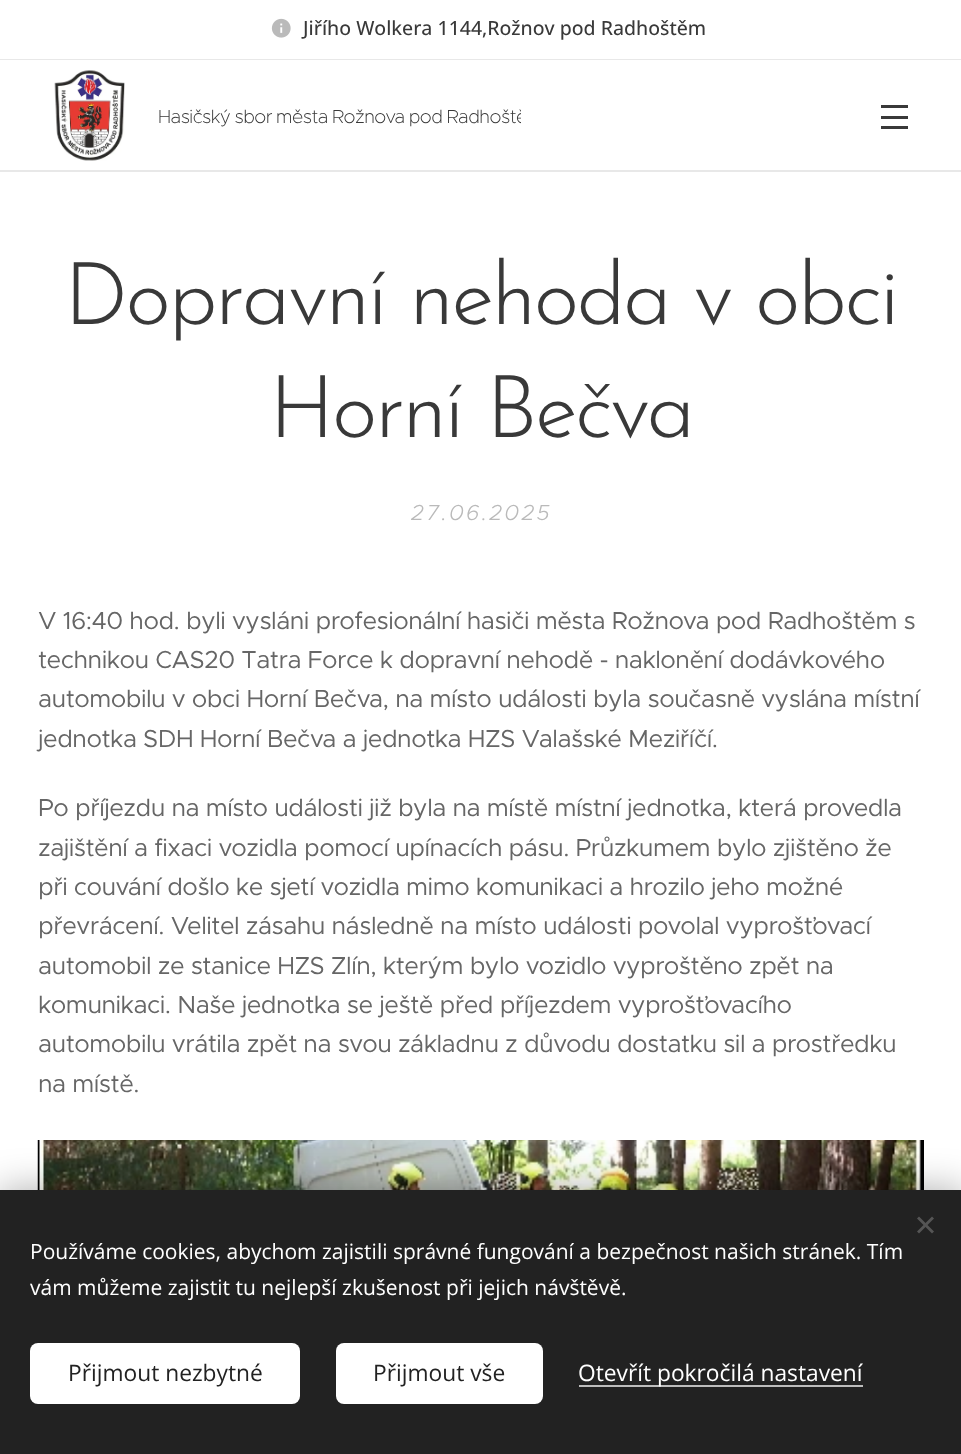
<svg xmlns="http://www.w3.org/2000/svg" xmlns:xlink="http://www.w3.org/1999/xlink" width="961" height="1454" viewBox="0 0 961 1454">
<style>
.cls-1{font:500 19.5px Open Sans;fill:#393939}
.cls-2{font:200 18.9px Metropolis;letter-spacing:-0.5px;fill:#393939}
.cls-3{font:300 87px Josefin Sans;letter-spacing:-2.6px;fill:#393939}
.cls-4{font:italic 300 22px Metropolis;letter-spacing:2.25px;fill:#bababa}
.cls-5{font:24.6px Metropolis;letter-spacing:-0.5px;fill:#666666}
.cls-6{font:21px Open Sans;fill:#ffffff}
.cls-7{font:22.75px Open Sans;fill:#222222}
.cls-8{font:22.75px Open Sans;fill:#ffffff}
</style>
<defs>
<clipPath id="clip1"><rect x="152" y="92" width="369" height="48"/></clipPath>
</defs>
<rect width="100%" height="100%" fill="#ffffff"/>
<image xlink:href="image0.png" x="271" y="18" width="20" height="20"/>
<rect fill="#e8e8e8" x="0" y="59" width="961" height="1"/>
<image xlink:href="image1.png" x="54" y="70" width="71" height="91"/>
<rect fill="#393939" x="881" y="116" width="27" height="3"/>
<rect fill="#393939" x="881" y="105" width="27" height="3"/>
<rect fill="#393939" x="881" y="126" width="27" height="3"/>
<rect fill="#e8e8e8" x="0" y="170" width="961" height="2"/>
<image xlink:href="image2.png" x="37" y="1140" width="887" height="50"/>
<rect fill="#000000" fill-opacity="0.33" filter="blur(19px)" x="0" y="1190" width="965" height="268"/>
<rect fill="#222222" x="0" y="1190" width="961" height="264"/>
<path fill="#555555" d="M917 1231.5L932 1216.5L934 1218.5L919 1233.5Z"/>
<path fill="#555555" d="M919 1216.5L934 1231.5L932 1233.5L917 1218.5Z"/>
<rect fill="#ffffff" x="30" y="1343" width="270" height="61" rx="8"/>
<rect fill="#ffffff" x="336" y="1343" width="207" height="61" rx="8"/>
<rect fill="#bdbdbd" x="579" y="1385" width="284" height="2"/>
<text class="cls-1" x="303" y="35">Jiřího Wolkera 1144,Rožnov pod Radhoštěm</text>
<g clip-path="url(#clip1)">
<text class="cls-2" x="158" y="123" word-spacing="-1">Hasičský sbor města Rožnova pod Radhoště</text>
</g>
<text class="cls-3" x="64" y="324">Dopravní nehoda v obci</text>
<text class="cls-3" x="269" y="437">Horní Bečva</text>
<text class="cls-4" x="411" y="520">27.06.2025</text>
<text class="cls-5"><tspan x="38" y="629">V 16:40 hod. byli vysláni profesionální hasiči města Rožnova pod Radhoštěm s</tspan><tspan x="38" y="668">technikou CAS20 Tatra Force k dopravní nehodě - naklonění dodávkového</tspan><tspan x="38" y="707">automobilu v obci Horní Bečva, na místo události byla současně vyslána místní</tspan><tspan x="38" y="747">jednotka SDH Horní Bečva a jednotka HZS Valašské Meziříčí.</tspan></text>
<text class="cls-5"><tspan x="38" y="816">Po příjezdu na místo události již byla na místě místní jednotka, která provedla</tspan><tspan x="38" y="856">zajištění a fixaci vozidla pomocí upínacích pásu. Průzkumem bylo zjištěno že</tspan><tspan x="38" y="895">při couvání došlo ke sjetí vozidla mimo komunikaci a hrozilo jeho možné</tspan><tspan x="38" y="934">převrácení. Velitel zásahu následně na místo události povolal vyprošťovací</tspan><tspan x="38" y="974">automobil ze stanice HZS Zlín, kterým bylo vozidlo vyproštěno zpět na</tspan><tspan x="38" y="1013">komunikaci. Naše jednotka se ještě před příjezdem vyprošťovacího</tspan><tspan x="38" y="1052">automobilu vrátila zpět na svou základnu z důvodu dostatku sil a prostředku</tspan><tspan x="38" y="1092">na místě.</tspan></text>
<text class="cls-6"><tspan x="30" y="1259">Používáme cookies, abychom zajistili správné fungování a bezpečnost našich stránek. Tím</tspan><tspan x="30" y="1295">vám můžeme zajistit tu nejlepší zkušenost při jejich návštěvě.</tspan></text>
<text class="cls-7" x="68" y="1381">Přijmout nezbytné</text>
<text class="cls-7" x="373" y="1381">Přijmout vše</text>
<text class="cls-8" x="578" y="1381">Otevřít pokročilá nastavení</text>
</svg>
